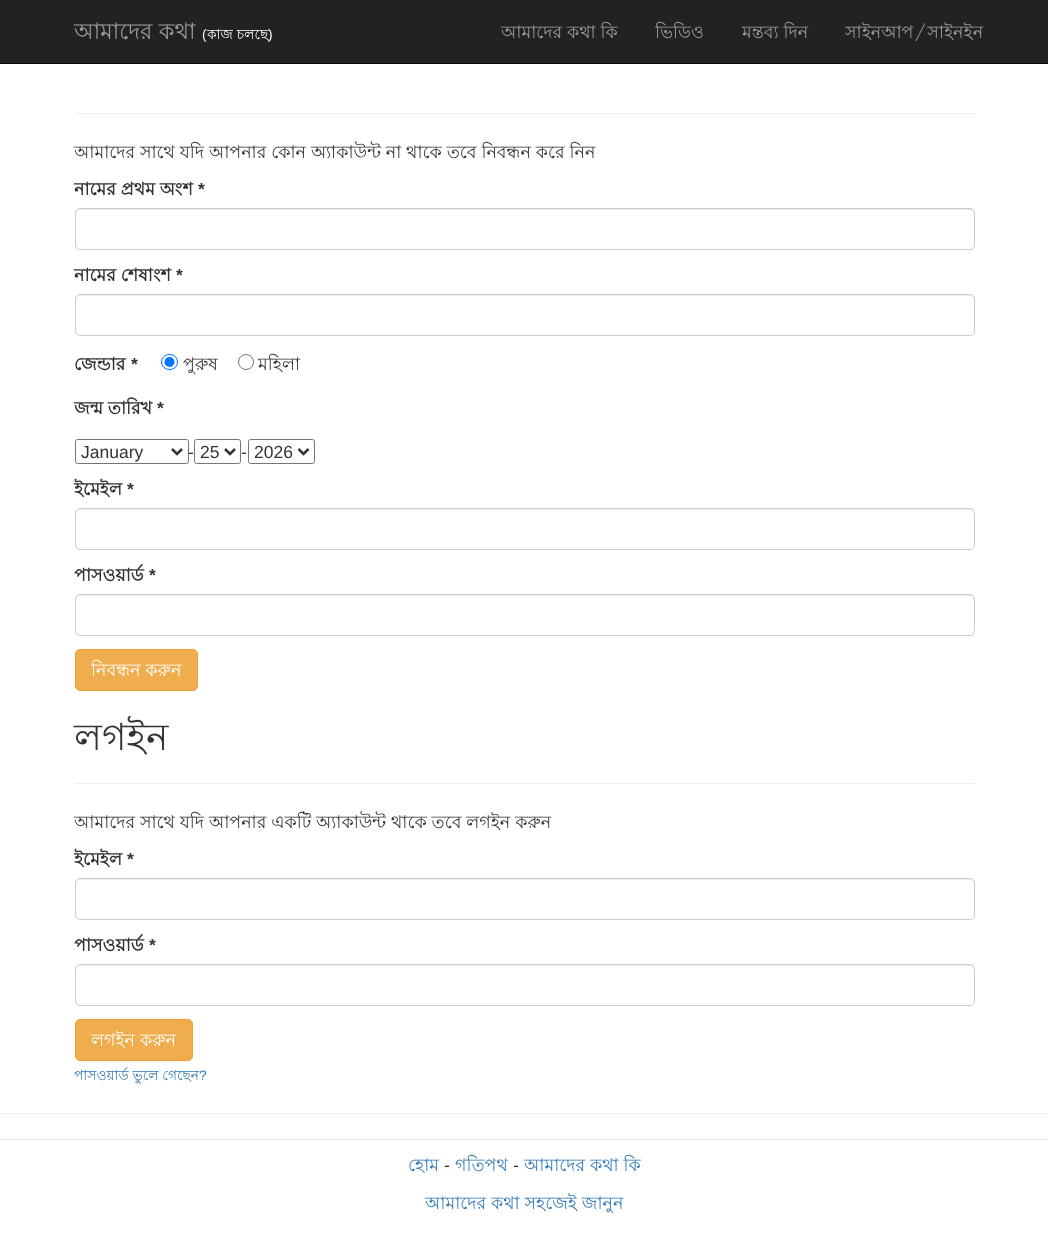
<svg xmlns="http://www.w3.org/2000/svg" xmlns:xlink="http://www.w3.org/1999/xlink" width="1048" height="1239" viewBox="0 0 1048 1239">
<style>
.cls-1{font:22.5px Lohit Bengali;fill:#9d9d9d}
.cls-2{font:13.75px Liberation Sans;fill:#ffffff}
.cls-3{font:13.75px Lohit Bengali;fill:#ffffff}
.cls-4{font:17.5px Lohit Bengali;fill:#9d9d9d}
.cls-5{font:17.5px Lohit Bengali;fill:#333333}
.cls-6{font:bold 17.5px Lohit Bengali;fill:#333333}
.cls-7{font:bold 17.5px Liberation Sans;fill:#333333}
.cls-8{font:17.5px Liberation Sans;fill:#333333}
.cls-9{font:17.5px Lohit Bengali;fill:#ffffff}
.cls-10{font:37.5px Lohit Bengali;fill:#333333}
.cls-11{font:13.75px Lohit Bengali;fill:#337ab7}
.cls-12{font:13.75px Liberation Sans;fill:#337ab7}
.cls-13{font:17.5px Lohit Bengali;fill:#337ab7}
</style>
<rect width="100%" height="100%" fill="#ffffff"/>
<rect fill="#222222" x="0" y="0" width="1048" height="63"/>
<rect fill="#080808" x="0" y="63" width="1048" height="1"/>
<rect fill="#eeeeee" x="75" y="113" width="900" height="1"/>
<path fill="#ececec" d="M80 210H970C972 210 974 212 974 214C974 211 973 209 970 209H80C77 209 76 211 76 214C76 212 78 210 80 210Z"/>
<rect fill="none" stroke="#cccccc" x="75.5" y="208.5" width="899" height="41" rx="4.5"/>
<path fill="#ececec" d="M80 296H970C972 296 974 298 974 300C974 297 973 295 970 295H80C77 295 76 297 76 300C76 298 78 296 80 296Z"/>
<rect fill="none" stroke="#cccccc" x="75.5" y="294.5" width="899" height="41" rx="4.5"/>
<rect fill="none" stroke="#0075ff" x="161.5" y="354.5" width="16" height="15" rx="7.5"/>
<circle fill="#0075ff" cx="169.5" cy="362" r="5"/>
<circle fill="none" stroke="#767676" cx="246" cy="362" r="7.5"/>
<rect fill="none" stroke="#767676" x="75.5" y="439.5" width="113" height="24" rx="2"/>
<path fill="none" stroke="#333333" stroke-width="2.5" d="M172 449L177 454L182 449"/>
<rect fill="none" stroke="#767676" x="194.5" y="439.5" width="46" height="24" rx="2"/>
<path fill="none" stroke="#333333" stroke-width="2.5" d="M225 449L230 454L235 449"/>
<rect fill="none" stroke="#767676" x="248.5" y="439.5" width="66" height="24" rx="2"/>
<path fill="none" stroke="#333333" stroke-width="2.5" d="M298.5 449L303.5 454L308.5 449"/>
<path fill="#ececec" d="M80 510H970C972 510 974 512 974 514C974 511 973 509 970 509H80C77 509 76 511 76 514C76 512 78 510 80 510Z"/>
<rect fill="none" stroke="#cccccc" x="75.5" y="508.5" width="899" height="41" rx="4.5"/>
<path fill="#ececec" d="M80 596H970C972 596 974 598 974 600C974 597 973 595 970 595H80C77 595 76 597 76 600C76 598 78 596 80 596Z"/>
<rect fill="none" stroke="#cccccc" x="75.5" y="594.5" width="899" height="41" rx="4.5"/>
<rect fill="#f0ad4e" stroke="#eea236" x="75.5" y="649.5" width="122" height="41" rx="4.5"/>
<rect fill="#eeeeee" x="75" y="783" width="900" height="1"/>
<path fill="#ececec" d="M80 880H970C972 880 974 882 974 884C974 881 973 879 970 879H80C77 879 76 881 76 884C76 882 78 880 80 880Z"/>
<rect fill="none" stroke="#cccccc" x="75.5" y="878.5" width="899" height="41" rx="4.5"/>
<path fill="#ececec" d="M80 966H970C972 966 974 968 974 970C974 967 973 965 970 965H80C77 965 76 967 76 970C76 968 78 966 80 966Z"/>
<rect fill="none" stroke="#cccccc" x="75.5" y="964.5" width="899" height="41" rx="4.5"/>
<rect fill="#f0ad4e" stroke="#eea236" x="75.5" y="1019.5" width="117" height="41" rx="4.5"/>
<rect fill="#eeeeee" x="0" y="1113" width="1048" height="1"/>
<rect fill="#e6e6e6" x="0" y="1139" width="1048" height="1"/>
<text class="cls-1" x="74" y="39">আমাদের কথা</text>
<text class="cls-2" x="202" y="39">(</text>
<text class="cls-3" x="207" y="39">কাজ চলছে</text>
<text class="cls-2" x="268" y="39">)</text>
<text class="cls-4" x="501" y="38">আমাদের কথা কি</text>
<text class="cls-4" x="655" y="38">ভিডিও</text>
<text class="cls-4" x="742" y="38">মন্তব্য দিন</text>
<text class="cls-4" x="845" y="38">সাইনআপ/সাইনইন</text>
<text class="cls-5" x="74" y="158">আমাদের সাথে যদি আপনার কোন অ্যাকাউন্ট না থাকে তবে নিবন্ধন করে নিন</text>
<text class="cls-6" x="74" y="195">নামের প্রথম অংশ</text>
<text class="cls-7" x="198" y="195">*</text>
<text class="cls-6" x="74" y="281">নামের শেষাংশ</text>
<text class="cls-7" x="176" y="281">*</text>
<text class="cls-6" x="74" y="370">জেন্ডার</text>
<text class="cls-7" x="131" y="370">*</text>
<text class="cls-5" x="183" y="370">পুরুষ</text>
<text class="cls-5" x="258" y="370">মহিলা</text>
<text class="cls-6" x="74" y="414">জন্ম তারিখ</text>
<text class="cls-7" x="157" y="414">*</text>
<text class="cls-8" x="81" y="458">January</text>
<text class="cls-8" x="188" y="458">-</text>
<text class="cls-8" x="200" y="458">25</text>
<text class="cls-8" x="241" y="458">-</text>
<text class="cls-8" x="254" y="458">2026</text>
<text class="cls-6" x="74" y="495">ইমেইল</text>
<text class="cls-7" x="127" y="495">*</text>
<text class="cls-6" x="74" y="581">পাসওয়ার্ড</text>
<text class="cls-7" x="149" y="581">*</text>
<text class="cls-9" x="91" y="676">নিবন্ধন করুন</text>
<text class="cls-10" x="74" y="750">লগইন</text>
<text class="cls-5" x="74" y="828">আমাদের সাথে যদি আপনার একটি অ্যাকাউন্ট থাকে তবে লগইন করুন</text>
<text class="cls-6" x="74" y="865">ইমেইল</text>
<text class="cls-7" x="127" y="865">*</text>
<text class="cls-6" x="74" y="951">পাসওয়ার্ড</text>
<text class="cls-7" x="149" y="951">*</text>
<text class="cls-9" x="91" y="1046">লগইন করুন</text>
<text class="cls-11" x="74" y="1080">পাসওয়ার্ড ভুলে গেছেন</text>
<text class="cls-12" x="199" y="1080">?</text>
<text class="cls-13" x="408" y="1171">হোম</text>
<text class="cls-8" x="444" y="1171">-</text>
<text class="cls-13" x="455" y="1171">গতিপথ</text>
<text class="cls-8" x="513" y="1171">-</text>
<text class="cls-13" x="524" y="1171">আমাদের কথা কি</text>
<text class="cls-13" x="425" y="1209">আমাদের কথা সহজেই জানুন</text>
</svg>
